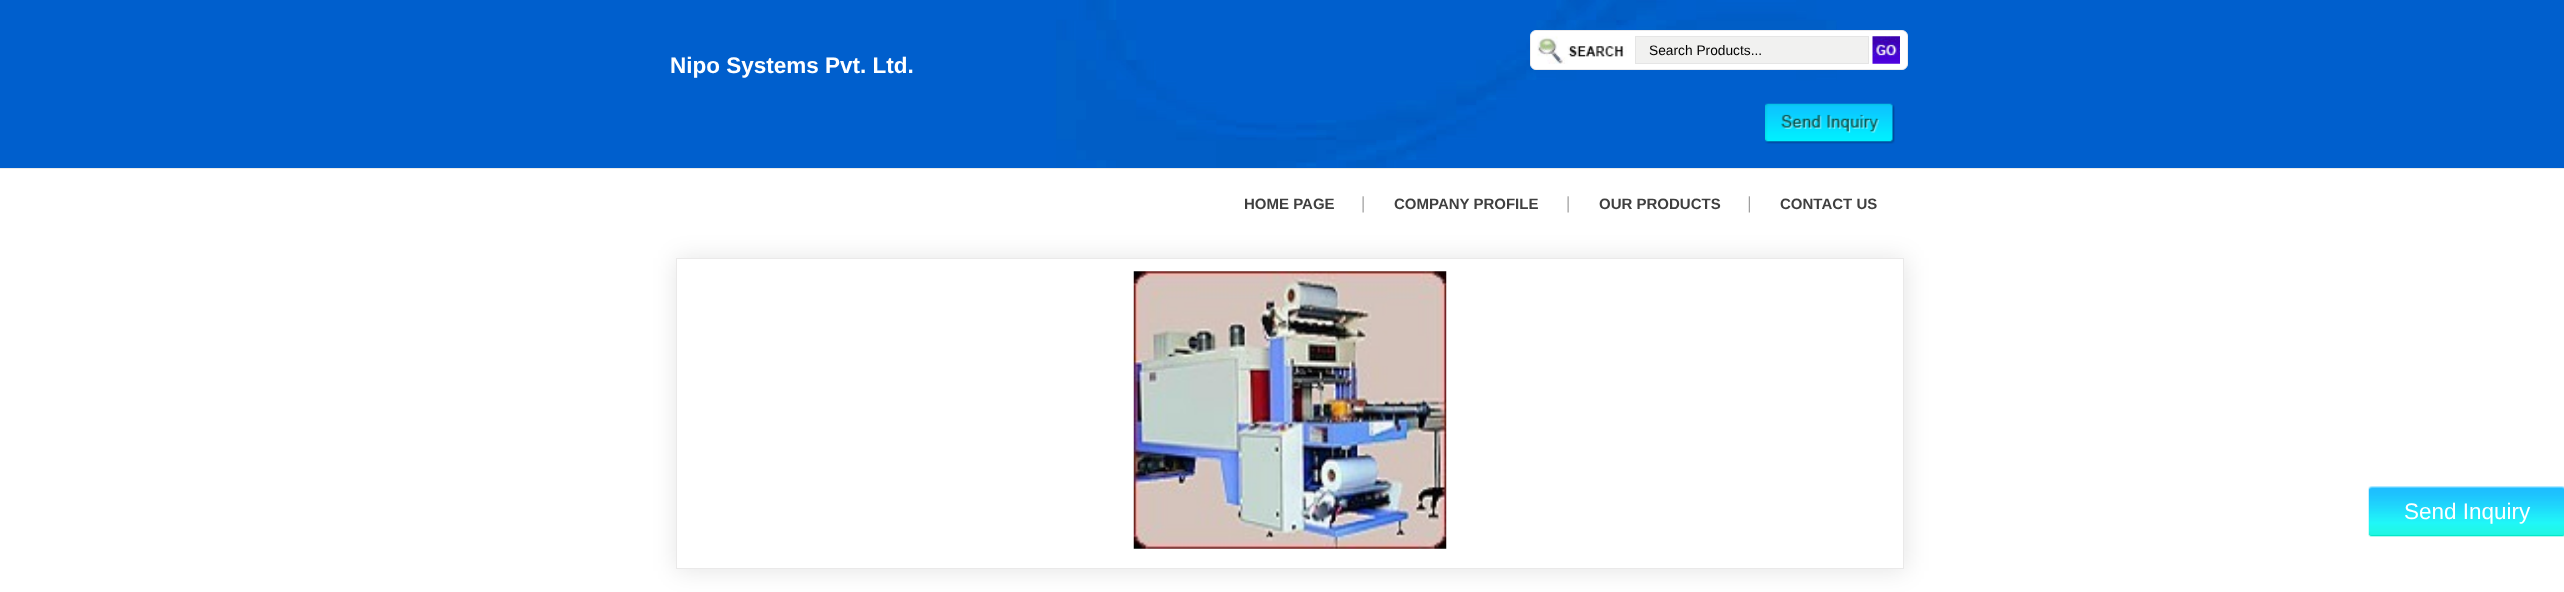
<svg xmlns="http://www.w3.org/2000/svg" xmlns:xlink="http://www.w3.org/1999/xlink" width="2564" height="592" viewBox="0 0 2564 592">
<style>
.cls-1{font:13.75px Liberation Sans;fill:#000000}
.cls-2{font:bold 22.5px Liberation Sans;fill:#ffffff}
.cls-3{font:bold 15px Liberation Sans;fill:#3f3f3f}
.cls-4{font:22.5px Liberation Sans;fill:#ffffff}
</style>
<rect width="100%" height="100%" fill="#ffffff"/>
<rect fill="#005fcd" x="0" y="0" width="2564" height="168"/>
<image xlink:href="image0.png" x="1056" y="0" width="781" height="168"/>
<rect fill="#ffffff" stroke="#ebebed" x="1530.5" y="30.5" width="377" height="39" rx="5.5"/>
<image xlink:href="image1.png" x="1537" y="36" width="90" height="28"/>
<rect fill="#f1f1f0" stroke="#e5e5e5" x="1635.5" y="36.5" width="233" height="27"/>
<image xlink:href="image2.png" x="1872" y="36" width="28" height="28"/>
<image xlink:href="image3.png" x="1765" y="103" width="130" height="41"/>
<rect fill="#ebebeb" x="0" y="168" width="2564" height="1"/>
<image xlink:href="image4.png" x="1362" y="196" width="2" height="17"/>
<image xlink:href="image4.png" x="1567" y="196" width="2" height="17"/>
<image xlink:href="image5.png" x="1748" y="196" width="2" height="17"/>
<rect fill="#010101" fill-opacity="0.1" filter="blur(12.5px)" x="676" y="258" width="1230" height="313"/>
<rect fill="#ffffff" stroke="#eae9e9" x="676.5" y="258.5" width="1227" height="310"/>
<image xlink:href="image6.png" x="1133" y="271" width="314" height="278"/>
<image xlink:href="image7.png" x="2368" y="486" width="196" height="51"/>
<text class="cls-1" x="1649" y="55">Search Products...</text>
<text class="cls-2" x="670" y="73">Nipo Systems Pvt. Ltd.</text>
<text class="cls-3" x="1244" y="209">HOME PAGE</text>
<text class="cls-3" x="1394" y="209">COMPANY PROFILE</text>
<text class="cls-3" x="1599" y="209">OUR PRODUCTS</text>
<text class="cls-3" x="1780" y="209">CONTACT US</text>
<text class="cls-4" x="2404" y="519">Send Inquiry</text>
</svg>
